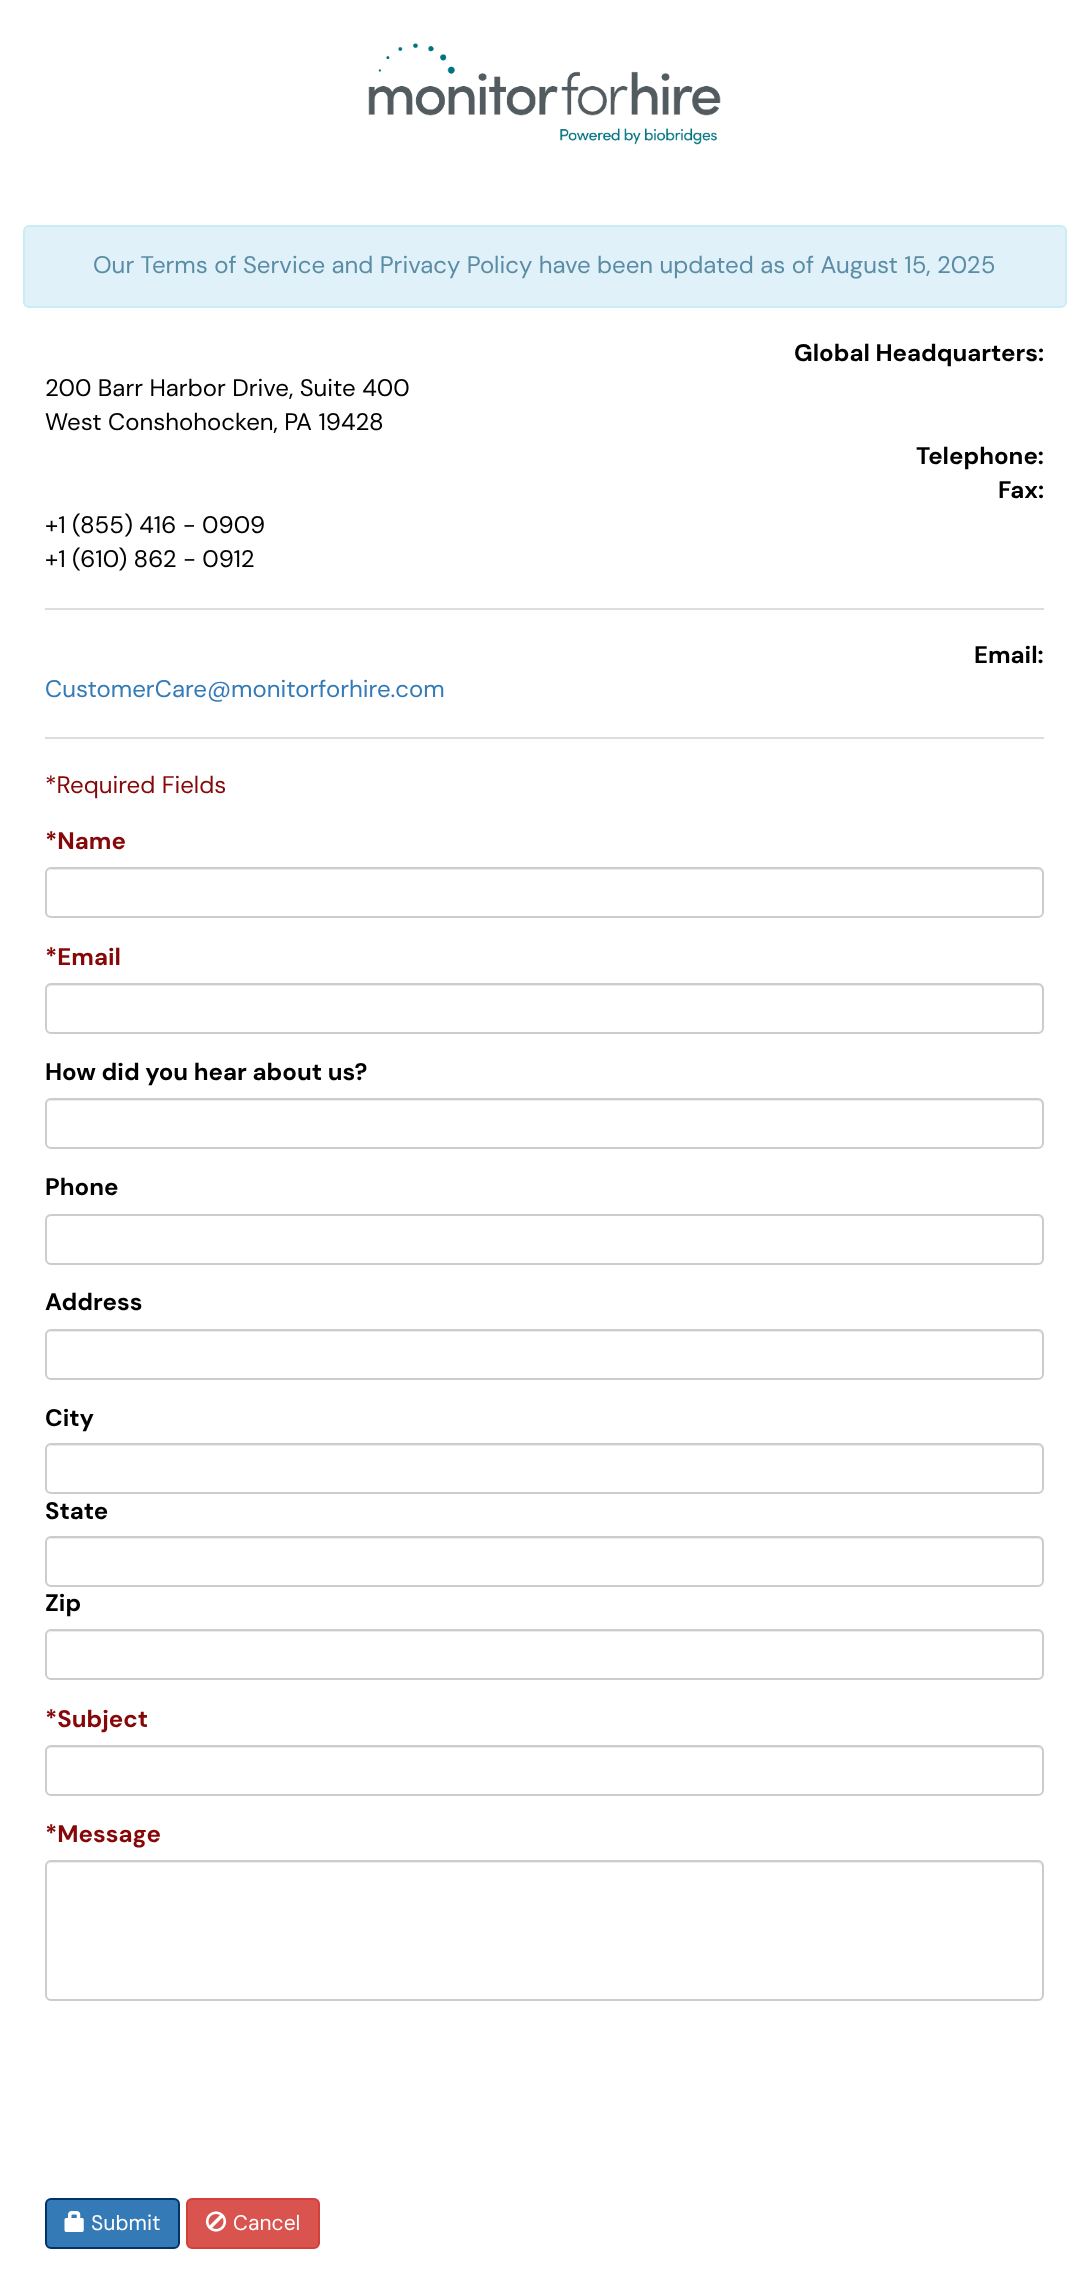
<svg xmlns="http://www.w3.org/2000/svg" xmlns:xlink="http://www.w3.org/1999/xlink" width="1088" height="2286" viewBox="0 0 1088 2286">
<style>
.cls-1{font:24px DM Sans;fill:#5a8da5}
.cls-2{font:bold 24px DM Sans;fill:#000000}
.cls-3{font:24px DM Sans;fill:#000000}
.cls-4{font:24px DM Sans;fill:#337ab7}
.cls-5{font:24px DM Sans;fill:#850707}
.cls-6{font:bold 24px DM Sans;fill:#850707}
.cls-7{font:21px 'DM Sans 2';fill:#ffffff}
</style>
<rect width="100%" height="100%" fill="#ffffff"/>
<image xlink:href="image0.png" x="368" y="43" width="353" height="102"/>
<rect fill="#e1f1f9" stroke="#c9edf4" stroke-width="2" x="24" y="226" width="1042" height="81" rx="5"/>
<rect fill="#dddddd" x="45" y="608" width="999" height="2"/>
<rect fill="#dddddd" x="45" y="737" width="999" height="2"/>
<path fill="#ececec" d="M51 870H1038C1040 870 1042 872 1042 874V915C1043 914 1043 913 1043 912V874C1043 871 1041 869 1038 869H52C50 869 49 870 48 871Z"/>
<rect fill="none" stroke="#cccccc" stroke-width="2" x="46" y="868" width="997" height="49" rx="5"/>
<path fill="#ececec" d="M51 986H1038C1040 986 1042 988 1042 990V1030C1043 1029 1043 1028 1043 1027V989C1043 986 1041 984 1038 984H52C50 984 48 986 47 988C48 987 50 986 51 986Z"/>
<rect fill="none" stroke="#cccccc" stroke-width="2" x="46" y="984" width="997" height="49" rx="5"/>
<path fill="#ececec" d="M51 1101H1038C1040 1101 1042 1103 1042 1106V1144L1041 1147C1042 1146 1043 1144 1043 1143V1105C1043 1102 1041 1100 1038 1100H52C50 1100 49 1101 48 1102Z"/>
<rect fill="none" stroke="#cccccc" stroke-width="2" x="46" y="1099" width="997" height="49" rx="5"/>
<path fill="#ececec" d="M51 1216H1038C1040 1216 1042 1219 1042 1221V1261C1043 1260 1043 1259 1043 1258V1220C1043 1217 1041 1215 1038 1215H52C50 1215 48 1216 47 1218C48 1217 50 1216 51 1216Z"/>
<rect fill="none" stroke="#cccccc" stroke-width="2" x="46" y="1215" width="997" height="49" rx="5"/>
<path fill="#ececec" d="M51 1332H1038C1040 1332 1042 1334 1042 1336V1377C1043 1376 1043 1375 1043 1374V1336C1043 1333 1041 1331 1038 1331H52C50 1331 49 1332 48 1333Z"/>
<rect fill="none" stroke="#cccccc" stroke-width="2" x="46" y="1330" width="997" height="49" rx="5"/>
<path fill="#ececec" d="M51 1446H1038C1040 1446 1042 1448 1042 1450V1491C1043 1490 1043 1489 1043 1488V1450C1043 1447 1041 1445 1038 1445H52C50 1445 49 1446 48 1447Z"/>
<rect fill="none" stroke="#cccccc" stroke-width="2" x="46" y="1444" width="997" height="49" rx="5"/>
<path fill="#ececec" d="M51 1539H1038C1040 1539 1042 1541 1042 1544V1582L1041 1585C1042 1584 1043 1582 1043 1581V1543C1043 1540 1041 1538 1038 1538H52C50 1538 49 1539 48 1540Z"/>
<rect fill="none" stroke="#cccccc" stroke-width="2" x="46" y="1537" width="997" height="49" rx="5"/>
<path fill="#ececec" d="M51 1632H1038C1040 1632 1042 1634 1042 1636V1677C1043 1676 1043 1675 1043 1674V1636C1043 1633 1041 1631 1038 1631H52C50 1631 49 1632 48 1633Z"/>
<rect fill="none" stroke="#cccccc" stroke-width="2" x="46" y="1630" width="997" height="49" rx="5"/>
<path fill="#ececec" d="M51 1748H1038C1040 1748 1042 1750 1042 1752V1792C1043 1791 1043 1790 1043 1789V1751C1043 1748 1041 1746 1038 1746H52C50 1746 48 1748 47 1750C48 1749 50 1748 51 1748Z"/>
<rect fill="none" stroke="#cccccc" stroke-width="2" x="46" y="1746" width="997" height="49" rx="5"/>
<path fill="#ececec" d="M51 1863H1038C1040 1863 1042 1865 1042 1868V1996L1041 1999C1042 1998 1043 1996 1043 1995V1867C1043 1864 1041 1862 1038 1862H52C50 1862 49 1863 48 1864Z"/>
<rect fill="none" stroke="#cccccc" stroke-width="2" x="46" y="1861" width="997" height="139" rx="5"/>
<rect fill="#337ab7" stroke="#003466" stroke-width="2" x="46" y="2199" width="133" height="49" rx="5"/>
<image xlink:href="image1.png" x="64" y="2211" width="20" height="21"/>
<rect fill="#d9534f" stroke="#d43f3a" stroke-width="2" x="187" y="2199" width="132" height="49" rx="5"/>
<image xlink:href="image2.png" x="205" y="2211" width="22" height="21"/>
<text class="cls-1" x="93" y="273">Our Terms of Service and Privacy Policy have been updated as of August 15, 2025</text>
<text class="cls-2" x="794" y="361">Global Headquarters:</text>
<text class="cls-3"><tspan x="45" y="396">200 Barr Harbor Drive, Suite 400</tspan><tspan x="45" y="430">West Conshohocken, PA 19428</tspan></text>
<text class="cls-2" x="916" y="464">Telephone:</text>
<text class="cls-2" x="998" y="498">Fax:</text>
<text class="cls-3"><tspan x="45" y="533">+1 (855) 416 - 0909</tspan><tspan x="45" y="567">+1 (610) 862 - 0912</tspan></text>
<text class="cls-2" x="974" y="663">Email:</text>
<text class="cls-4" x="45" y="697">CustomerCare@monitorforhire.com</text>
<text class="cls-5" x="45" y="793">*Required Fields</text>
<text class="cls-6" x="45" y="849">*Name</text>
<text class="cls-6" x="45" y="965">*Email</text>
<text class="cls-2" x="45" y="1080">How did you hear about us?</text>
<text class="cls-2" x="45" y="1195">Phone</text>
<text class="cls-2" x="45" y="1310">Address</text>
<text class="cls-2" x="45" y="1426">City</text>
<text class="cls-2" x="45" y="1519">State</text>
<text class="cls-2" x="45" y="1611">Zip</text>
<text class="cls-6" x="45" y="1727">*Subject</text>
<text class="cls-6" x="45" y="1842">*Message</text>
<text class="cls-7" x="91" y="2230">Submit</text>
<text class="cls-7" x="233" y="2230">Cancel</text>
</svg>
